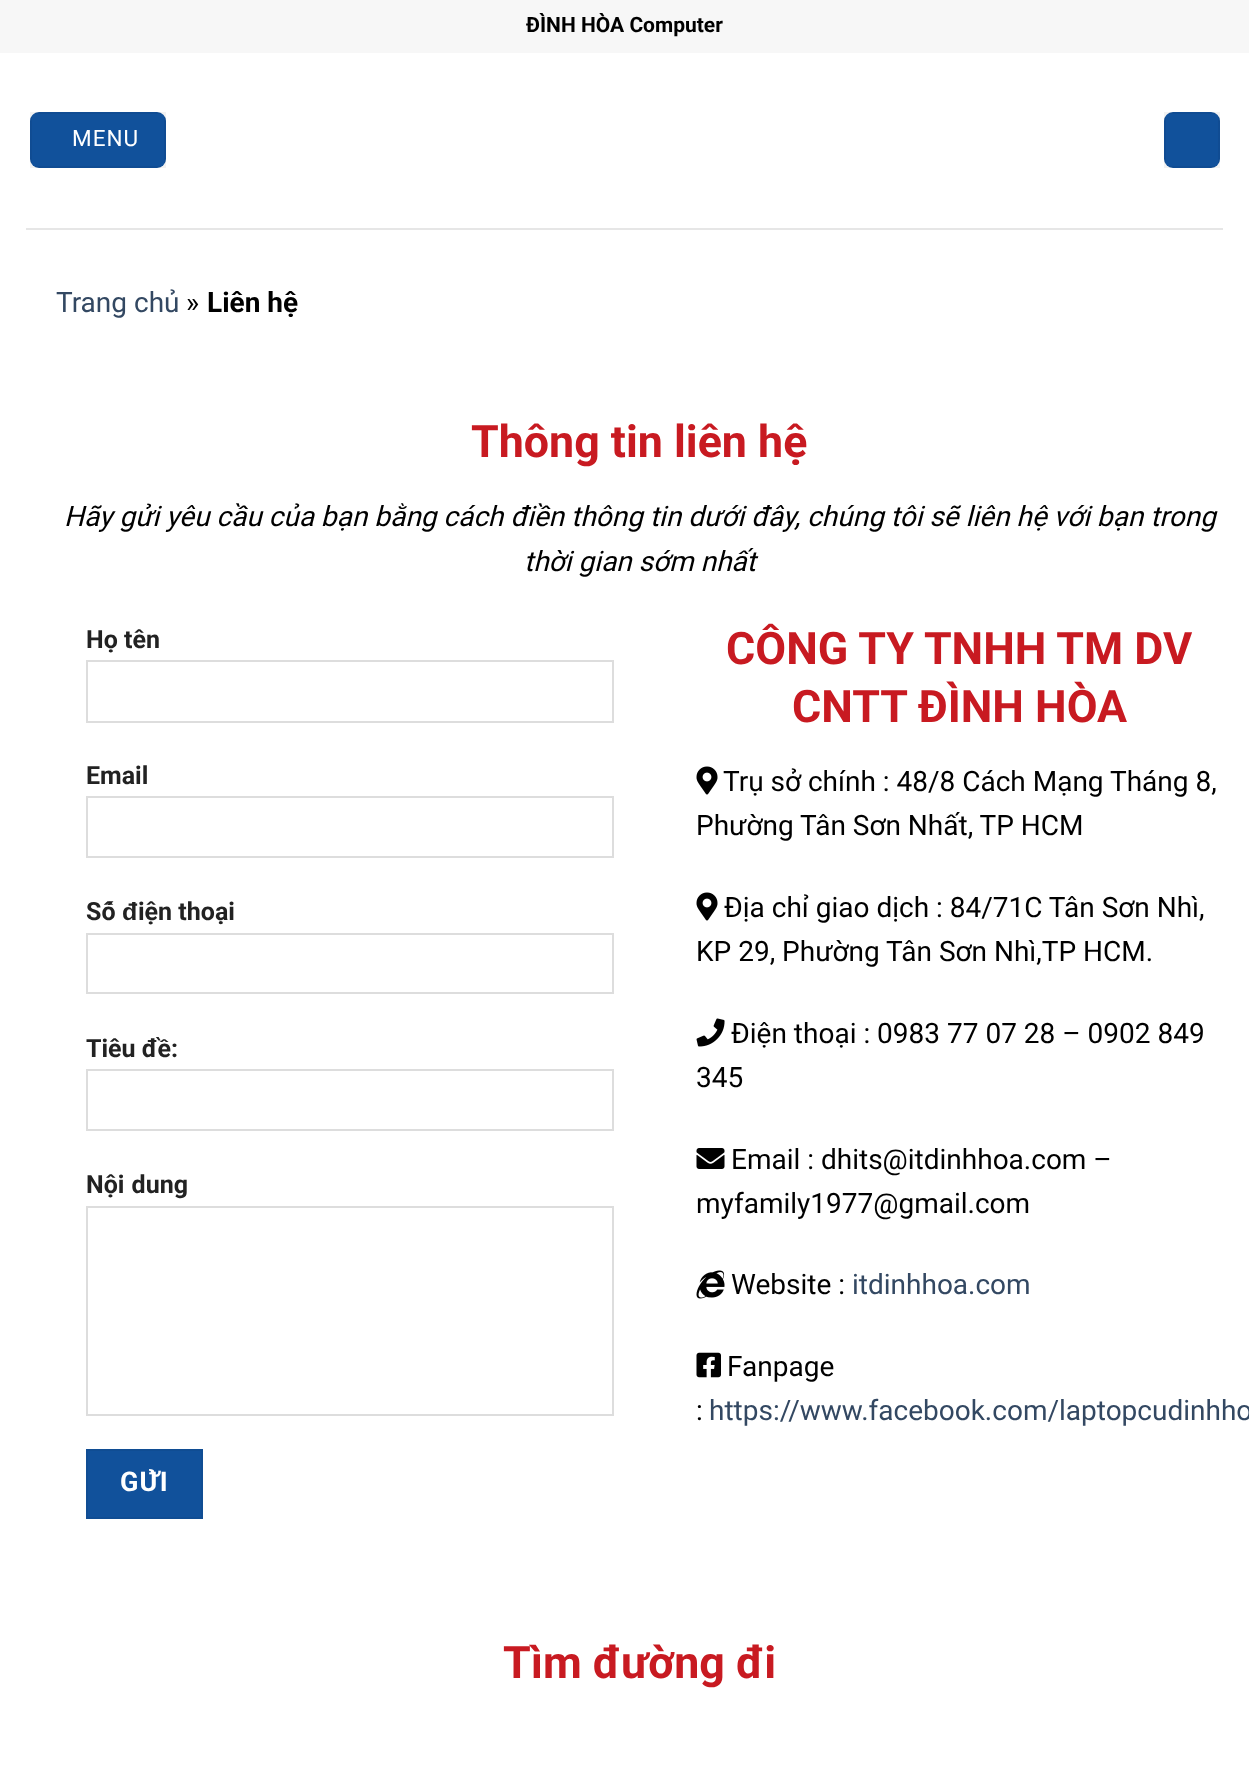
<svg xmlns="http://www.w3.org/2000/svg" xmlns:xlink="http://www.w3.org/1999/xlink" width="1249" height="1790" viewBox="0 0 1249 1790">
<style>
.cls-1{font:bold 21px Roboto;fill:#000000}
.cls-2{font:22.5px Roboto;letter-spacing:1px;fill:#ffffff}
.cls-3{font:28px Roboto;fill:#334862}
.cls-4{font:28px Roboto;fill:#000000}
.cls-5{font:bold 28px Roboto;fill:#000000}
.cls-6{font:bold 44.75px Roboto;fill:#c81a21}
.cls-7{font:italic 28px Roboto;fill:#000000}
.cls-8{font:bold 25px Roboto;fill:#222222}
.cls-9{font:bold 25px Liberation Sans;fill:#222222}
.cls-10{font:bold 27px Roboto;letter-spacing:1px;fill:#ffffff}
</style>
<rect width="100%" height="100%" fill="#ffffff"/>
<rect fill="#f7f7f7" x="0" y="0" width="1249" height="53"/>
<rect fill="#11519b" x="30" y="112" width="136" height="56" rx="9"/>
<rect fill="none" stroke="#000000" stroke-opacity="0.05" stroke-width="2" x="31" y="113" width="134" height="54"/>
<rect fill="#11519b" x="1164" y="112" width="56" height="56" rx="9"/>
<rect fill="none" stroke="#000000" stroke-opacity="0.05" stroke-width="2" x="1165" y="113" width="54" height="54"/>
<rect fill="#e6e6e6" x="26" y="228" width="1197" height="2"/>
<rect fill="none" stroke="#dddddd" stroke-width="2" x="87" y="661" width="526" height="61"/>
<rect fill="none" stroke="#dddddd" stroke-width="2" x="87" y="797" width="526" height="60"/>
<rect fill="none" stroke="#dddddd" stroke-width="2" x="87" y="934" width="526" height="59"/>
<rect fill="none" stroke="#dddddd" stroke-width="2" x="87" y="1070" width="526" height="60"/>
<rect fill="none" stroke="#dddddd" stroke-width="2" x="87" y="1207" width="526" height="208"/>
<rect fill="#11519b" stroke="#104d93" stroke-width="2" x="87" y="1450" width="115" height="68"/>
<image xlink:href="image0.png" x="696" y="766" width="22" height="29"/>
<image xlink:href="image0.png" x="696" y="892" width="22" height="29"/>
<image xlink:href="image1.png" x="696" y="1018" width="29" height="29"/>
<image xlink:href="image2.png" x="696" y="1148" width="29" height="21"/>
<image xlink:href="image3.png" x="696" y="1270" width="29" height="29"/>
<image xlink:href="image4.png" x="696" y="1352" width="25" height="26"/>
<text class="cls-1" x="526" y="32">ĐÌNH HÒA Computer</text>
<text class="cls-2" x="72" y="146">MENU</text>
<text class="cls-3" x="56" y="312">Trang chủ</text>
<text class="cls-4" x="186" y="312">»</text>
<text class="cls-5" x="207" y="312">Liên hệ</text>
<text class="cls-6" x="471" y="457">Thông tin liên hệ</text>
<text class="cls-7" x="64" y="526">Hãy gửi yêu cầu của bạn bằng cách điền thông tin dưới đây, chúng tôi sẽ liên hệ với bạn trong</text>
<text class="cls-7" x="524" y="571">thời gian sớm nhất</text>
<text class="cls-8" x="86" y="648">Họ tên</text>
<text class="cls-8" x="86" y="784">Email</text>
<text class="cls-8" x="86" y="920">Số</text>
<text class="cls-9" x="122" y="920">đ</text>
<text class="cls-8" x="138" y="920">iện thoại</text>
<text class="cls-8" x="86" y="1057">Tiêu đề:</text>
<text class="cls-8" x="86" y="1193" word-spacing="1">Nội dung</text>
<text class="cls-10" x="120" y="1491">GỬI</text>
<text class="cls-6" x="726" y="664">CÔNG TY TNHH TM DV</text>
<text class="cls-6" x="792" y="722">CNTT ĐÌNH HÒA</text>
<text class="cls-4" x="723" y="791">Trụ sở chính : 48/8 Cách Mạng Tháng 8,</text>
<text class="cls-4" x="696" y="835">Phường Tân Sơn Nhất, TP HCM</text>
<text class="cls-4" x="724" y="917">Địa chỉ giao dịch : 84/71C Tân Sơn Nhì,</text>
<text class="cls-4" x="696" y="961">KP 29, Phường Tân Sơn Nhì,TP HCM.</text>
<text class="cls-4" x="731" y="1043">Điện thoại : 0983 77 07 28 – 0902 849</text>
<text class="cls-4" x="696" y="1087">345</text>
<text class="cls-4" x="731" y="1169">Email : dhits@itdinhhoa.com –</text>
<text class="cls-4" x="696" y="1213">myfamily1977@gmail.com</text>
<text class="cls-4" x="731" y="1294">Website :</text>
<text class="cls-3" x="852" y="1294">itdinhhoa.com</text>
<text class="cls-4" x="727" y="1376">Fanpage</text>
<text class="cls-4" x="696" y="1420">:</text>
<text class="cls-3" x="709" y="1420">https://www.facebook.com/laptopcudinhho</text>
<text class="cls-6" x="503" y="1678">Tìm đường đi</text>
</svg>
